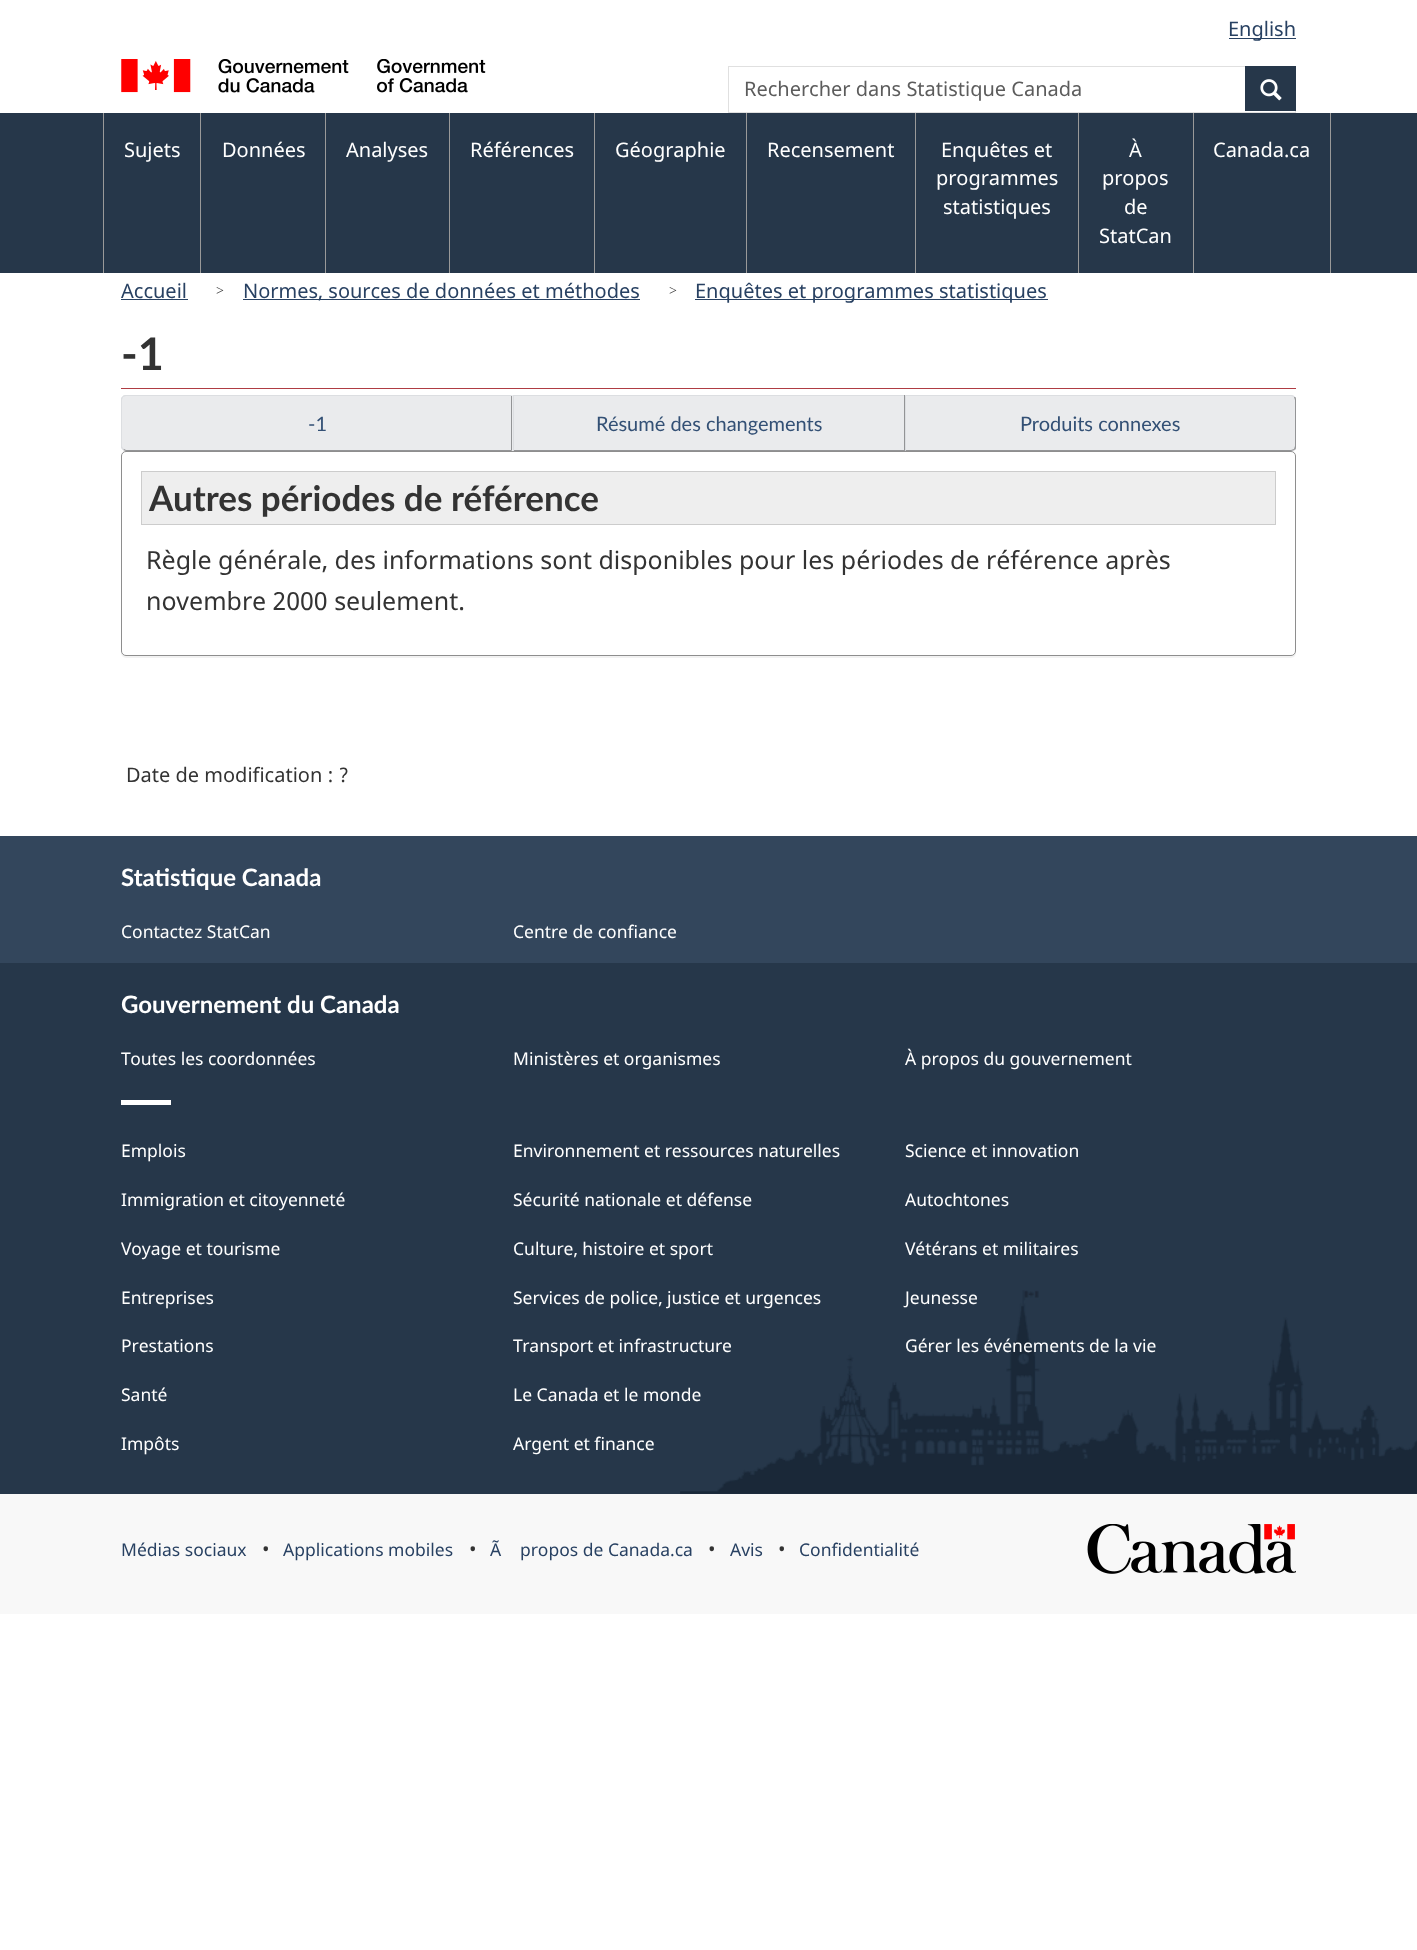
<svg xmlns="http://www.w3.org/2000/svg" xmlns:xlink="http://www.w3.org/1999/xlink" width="1417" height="1950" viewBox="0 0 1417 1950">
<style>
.cls-1{font:20px Noto Sans;fill:#284162}
.cls-2{font:20px Noto Sans;fill:#5c5c5c}
.cls-3{font:20px Noto Sans;fill:#ffffff}
.cls-4{font:14px Liberation Serif;fill:#333333}
.cls-5{font:bold 45px Lato;fill:#333333}
.cls-6{font:20px Lato;fill:#335075}
.cls-7{font:bold 35px Lato;fill:#333333}
.cls-8{font:25px Noto Sans;fill:#333333}
.cls-9{font:20px Noto Sans;fill:#333333}
.cls-10{font:bold 24px Lato;fill:#ffffff}
.cls-11{font:17.5px Noto Sans;fill:#ffffff}
.cls-12{font:17.5px Noto Sans;fill:#284162}
</style>
<rect width="100%" height="100%" fill="#ffffff"/>
<rect fill="#284162" x="1229" y="38" width="67" height="1"/>
<image xlink:href="image0.png" x="121" y="59" width="365" height="34"/>
<rect fill="none" stroke="#e0e0e0" x="728.5" y="66.5" width="567" height="46"/>
<rect fill="#26374a" x="1245" y="66" width="51" height="45"/>
<image xlink:href="image1.png" x="1260" y="79" width="22" height="22"/>
<rect fill="#26374a" x="0" y="113" width="1417" height="160"/>
<rect fill="#999999" x="1330" y="113" width="1" height="160"/>
<rect fill="#999999" x="103" y="113" width="1" height="160"/>
<rect fill="#999999" x="200" y="113" width="1" height="160"/>
<rect fill="#999999" x="325" y="113" width="1" height="160"/>
<rect fill="#999999" x="449" y="113" width="1" height="160"/>
<rect fill="#999999" x="594" y="113" width="1" height="160"/>
<rect fill="#999999" x="746" y="113" width="1" height="160"/>
<rect fill="#999999" x="915" y="113" width="1" height="160"/>
<rect fill="#999999" x="1078" y="113" width="1" height="160"/>
<rect fill="#999999" x="1193" y="113" width="1" height="160"/>
<rect fill="#284162" x="121" y="299" width="67" height="1"/>
<rect fill="#284162" x="243" y="299" width="397" height="1"/>
<rect fill="#284162" x="695" y="299" width="353" height="1"/>
<rect fill="#af3c43" x="121" y="388" width="1175" height="1"/>
<rect fill="#000000" fill-opacity="0.05" filter="blur(0.5px)" x="121" y="453" width="1175" height="205" rx="5"/>
<path fill="#eaebed" d="M126 395H513V451H126C123 451 121 449 121 446V400C121 397 123 395 126 395Z"/>
<path fill="#dcdee1" d="M126 395C125 395 123 395 123 396V397L126 396H511L512 395Z"/>
<path fill="#939496" d="M512 396V451L511 450V396Z"/>
<path fill="#939496" d="M512 451H126L123 450L124 449L126 450H511Z"/>
<path fill="#dcdee1" d="M121 398L123 396V397C123 398 122 399 122 400V446C122 447 123 448 124 449L123 450L121 448Z"/>
<rect fill="#eaebed" x="514" y="396" width="390" height="54"/>
<rect fill="#dcdee1" x="513" y="395" width="392" height="1"/>
<rect fill="#939496" x="904" y="395" width="1" height="56"/>
<rect fill="#939496" x="513" y="450" width="392" height="1"/>
<rect fill="#dcdee1" x="513" y="395" width="1" height="56"/>
<path fill="#eaebed" d="M905 395H1291C1294 395 1296 397 1296 400V446C1296 449 1294 451 1291 451H905Z"/>
<path fill="#dcdee1" d="M905 395L906 396H1291L1294 397H1295C1294 396 1293 395 1291 395Z"/>
<path fill="#939496" d="M1295 397C1296 397 1296 399 1296 400V446C1296 448 1296 449 1295 450L1294 449L1295 446V400L1294 397Z"/>
<path fill="#939496" d="M1295 450C1294 450 1292 451 1291 451H905L906 450H1291L1294 449Z"/>
<path fill="#dcdee1" d="M906 396L905 395V451L906 450Z"/>
<rect fill="#ffffff" stroke="#8e8e8e" x="121.5" y="451.5" width="1174" height="204" rx="4.5"/>
<rect fill="#eeeeee" stroke="#cccccc" x="141.5" y="471.5" width="1134" height="53"/>
<rect fill="#33465c" x="0" y="836" width="1417" height="127"/>
<rect fill="#26374a" x="0" y="963" width="1417" height="531"/>
<image xlink:href="image2.png" x="680" y="1290" width="737" height="204"/>
<rect fill="#ffffff" x="121" y="1100" width="50" height="5"/>
<rect fill="#f8f8f8" x="0" y="1494" width="1417" height="120"/>
<image xlink:href="image3.png" x="1087" y="1524" width="209" height="50"/>
<text class="cls-1" x="1228" y="36">English</text>
<text class="cls-2" x="744" y="96">Rechercher dans Statistique Canada</text>
<text class="cls-3" x="124" y="157">Sujets</text>
<text class="cls-3" x="222" y="157">Données</text>
<text class="cls-3" x="346" y="157">Analyses</text>
<text class="cls-3" x="470" y="157">Références</text>
<text class="cls-3" x="615" y="157">Géographie</text>
<text class="cls-3" x="767" y="157">Recensement</text>
<text class="cls-3" x="941" y="157">Enquêtes et</text>
<text class="cls-3" x="936" y="185">programmes</text>
<text class="cls-3" x="943" y="214">statistiques</text>
<text class="cls-3" x="1129" y="157">À</text>
<text class="cls-3" x="1102" y="185">propos</text>
<text class="cls-3" x="1124" y="214">de</text>
<text class="cls-3" x="1099" y="243">StatCan</text>
<text class="cls-3" x="1213" y="157">Canada.ca</text>
<text class="cls-1" x="121" y="298">Accueil</text>
<text class="cls-4" x="216" y="295">&gt;</text>
<text class="cls-1" x="243" y="298">Normes, sources de données et méthodes</text>
<text class="cls-4" x="669" y="295">&gt;</text>
<text class="cls-1" x="695" y="298">Enquêtes et programmes statistiques</text>
<text class="cls-5" x="121" y="370">-1</text>
<text class="cls-6" x="308" y="431">-1</text>
<text class="cls-6" x="596" y="431">Résumé des changements</text>
<text class="cls-6" x="1020" y="431">Produits connexes</text>
<text class="cls-7" x="149" y="511">Autres périodes de référence</text>
<text class="cls-8"><tspan x="146" y="569">Règle générale, des informations sont disponibles pour les périodes de référence après</tspan><tspan x="146" y="610">novembre 2000 seulement.</tspan></text>
<text class="cls-9" x="126" y="782">Date de modification : ?</text>
<text class="cls-10" x="121" y="886">Statistique Canada</text>
<text class="cls-11" x="121" y="938">Contactez StatCan</text>
<text class="cls-11" x="513" y="938">Centre de confiance</text>
<text class="cls-10" x="121" y="1013">Gouvernement du Canada</text>
<text class="cls-11" x="121" y="1065">Toutes les coordonnées</text>
<text class="cls-11" x="513" y="1065">Ministères et organismes</text>
<text class="cls-11" x="905" y="1065">À propos du gouvernement</text>
<text class="cls-11" x="121" y="1157">Emplois</text>
<text class="cls-11" x="513" y="1157">Environnement et ressources naturelles</text>
<text class="cls-11" x="905" y="1157">Science et innovation</text>
<text class="cls-11" x="121" y="1206">Immigration et citoyenneté</text>
<text class="cls-11" x="513" y="1206">Sécurité nationale et défense</text>
<text class="cls-11" x="905" y="1206">Autochtones</text>
<text class="cls-11" x="121" y="1255">Voyage et tourisme</text>
<text class="cls-11" x="513" y="1255">Culture, histoire et sport</text>
<text class="cls-11" x="905" y="1255">Vétérans et militaires</text>
<text class="cls-11" x="121" y="1304">Entreprises</text>
<text class="cls-11" x="513" y="1304">Services de police, justice et urgences</text>
<text class="cls-11" x="905" y="1304">Jeunesse</text>
<text class="cls-11" x="121" y="1352">Prestations</text>
<text class="cls-11" x="513" y="1352">Transport et infrastructure</text>
<text class="cls-11" x="905" y="1352">Gérer les événements de la vie</text>
<text class="cls-11" x="121" y="1401">Santé</text>
<text class="cls-11" x="513" y="1401">Le Canada et le monde</text>
<text class="cls-11" x="121" y="1450">Impôts</text>
<text class="cls-11" x="513" y="1450">Argent et finance</text>
<text class="cls-12" x="121" y="1556">Médias sociaux</text>
<text class="cls-9" x="262" y="1556">•</text>
<text class="cls-12" x="283" y="1556">Applications mobiles</text>
<text class="cls-9" x="469" y="1556">•</text>
<text class="cls-12" x="490" y="1556">Ã</text>
<text class="cls-12" x="520" y="1556">propos de Canada.ca</text>
<text class="cls-9" x="708" y="1556">•</text>
<text class="cls-12" x="730" y="1556">Avis</text>
<text class="cls-9" x="778" y="1556">•</text>
<text class="cls-12" x="799" y="1556">Confidentialité</text>
</svg>
